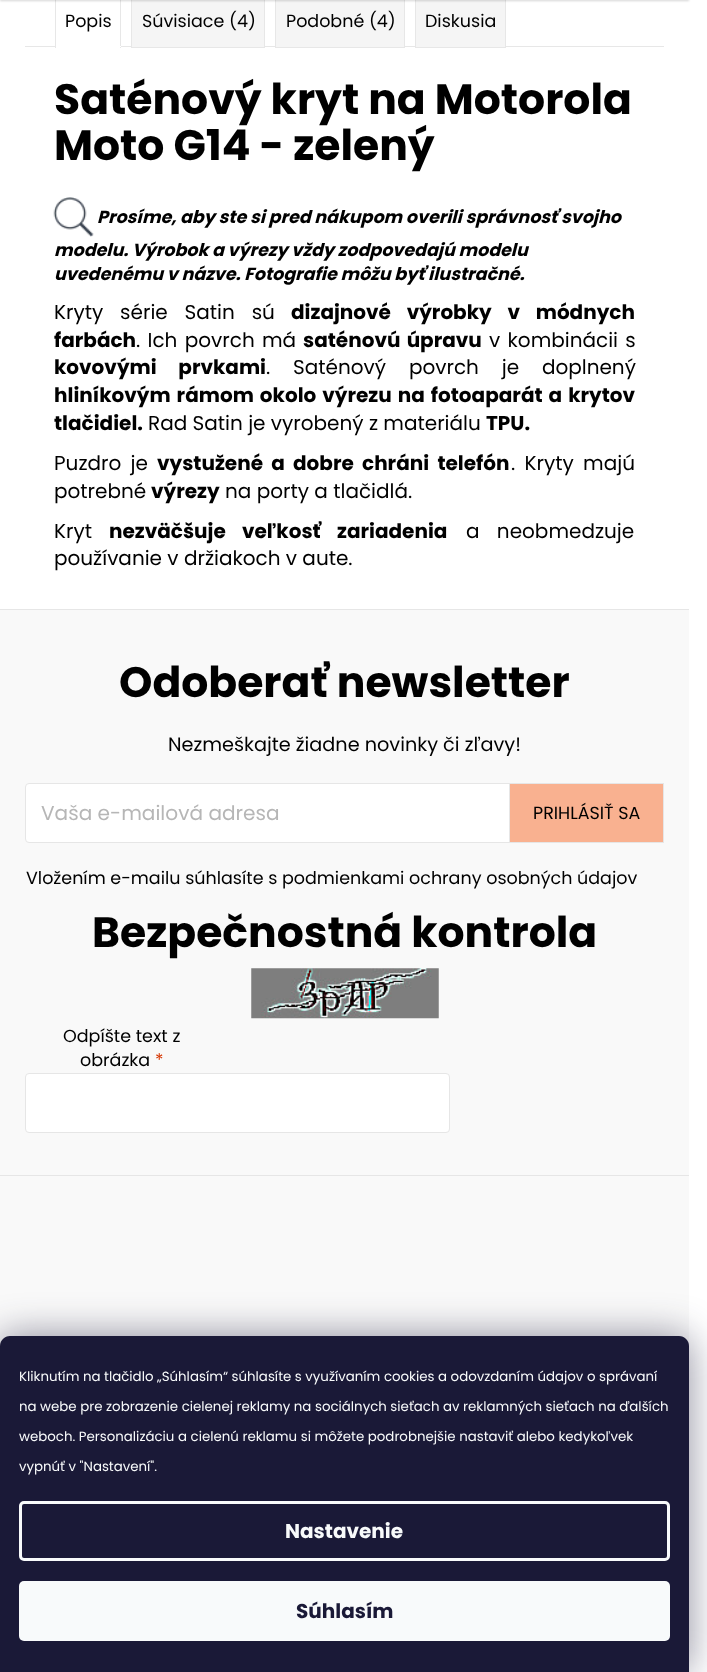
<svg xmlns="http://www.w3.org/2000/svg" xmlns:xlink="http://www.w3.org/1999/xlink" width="707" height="1672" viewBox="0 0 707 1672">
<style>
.cls-1{font:17.5px Poppins;fill:#000000}
.cls-2{font:bold 42.5px Poppins;fill:#000000}
.cls-3{font:italic bold 17.5px Poppins;fill:#000000}
.cls-4{font:20px Poppins;fill:#000000}
.cls-5{font:bold 20px Poppins;fill:#000000}
.cls-6{font:19.25px Poppins;fill:#000000}
.cls-7{font:20.1px Poppins;fill:#b6b6b6}
.cls-8{font:17.5px Poppins;fill:#d63500}
.cls-9{font:13.35px Poppins;fill:#f8fafb}
.cls-10{font:bold 20px Poppins;fill:#f8fafb}
.cls-11{font:bold 20px Poppins;fill:#1a1937}
</style>
<rect width="100%" height="100%" fill="#ffffff"/>
<rect fill="#e7e7e7" x="25" y="46" width="639" height="1"/>
<rect fill="#e7e7e7" x="120" y="0" width="1" height="48"/>
<rect fill="#ffffff" x="56" y="46" width="64" height="1"/>
<rect fill="#ffffff" x="55" y="46" width="66" height="1"/>
<rect fill="#e7e7e7" x="55" y="0" width="1" height="48"/>
<rect fill="#f5f5f5" stroke="#e7e7e7" x="131.5" y="-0.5" width="133" height="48"/>
<rect fill="#f5f5f5" stroke="#e7e7e7" x="275.5" y="-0.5" width="129" height="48"/>
<rect fill="#f5f5f5" stroke="#e7e7e7" x="415.5" y="-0.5" width="90" height="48"/>
<rect fill="#000000" fill-opacity="0.16" filter="blur(1px)" x="0" y="-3" width="689" height="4"/>
<image xlink:href="image0.png" x="53" y="197" width="41" height="40"/>
<rect fill="#f9f9f9" x="0" y="610" width="689" height="736"/>
<rect fill="#e6e6e6" x="0" y="609" width="689" height="1"/>
<rect fill="#e6e6e6" x="0" y="1175" width="689" height="1"/>
<rect fill="#ffffff" stroke="#e6e6e6" x="25.5" y="783.5" width="638" height="59" rx="3.5"/>
<rect fill="#f9b190" stroke="#e6e6e6" x="509.5" y="783.5" width="154" height="59"/>
<image xlink:href="image1.png" x="251" y="968" width="188" height="51"/>
<rect fill="#ffffff" stroke="#e6e6e6" x="25.5" y="1073.5" width="424" height="59" rx="3.5"/>
<rect fill="#1b1939" fill-opacity="0.5" filter="blur(19px)" x="0" y="1336" width="689" height="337" rx="10"/>
<path fill="#1a1937" d="M10 1336H679C684.5 1336 689 1340.5 689 1346V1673H0V1346C0 1340.5 4.5 1336 10 1336Z"/>
<rect fill="none" stroke="#f8fafb" stroke-width="3" x="20.5" y="1502.5" width="648" height="57" rx="3.5"/>
<rect fill="#f8fafb" x="19" y="1581" width="651" height="60" rx="5"/>
<text class="cls-1" x="65" y="27">Popis</text>
<text class="cls-1" x="142" y="27">Súvisiace (4)</text>
<text class="cls-1" x="286" y="27">Podobné (4)</text>
<text class="cls-1" x="425" y="27">Diskusia</text>
<text class="cls-2"><tspan x="54" y="114">Saténový kryt na Motorola</tspan><tspan x="54" y="160">Moto G14 - zelený</tspan></text>
<text class="cls-3" x="97" y="223">Prosíme, aby ste si pred nákupom overili správnosť svojho</text>
<text class="cls-3"><tspan x="54" y="256">modelu. Výrobok a výrezy vždy zodpovedajú modelu</tspan><tspan x="54" y="280">uvedenému v názve. Fotografie môžu byť ilustračné.</tspan></text>
<text class="cls-4" x="54" y="319" word-spacing="11.5">Kryty série Satin sú</text>
<text class="cls-5" x="291" y="319" word-spacing="11.5">dizajnové výrobky v módnych</text>
<text class="cls-5" x="54" y="347">farbách</text>
<text class="cls-4" x="136" y="347" word-spacing="2">. Ich povrch má</text>
<text class="cls-5" x="303" y="347" word-spacing="2">saténovú úpravu</text>
<text class="cls-4" x="489" y="347" word-spacing="2">v kombinácii s</text>
<text class="cls-5" x="54" y="374" word-spacing="17.5">kovovými prvkami</text>
<text class="cls-4" x="266" y="374" word-spacing="17.5">. Saténový povrch je doplnený</text>
<text class="cls-5"><tspan x="54" y="402" word-spacing="1.75">hliníkovým rámom okolo výrezu na fotoaparát a krytov</tspan><tspan x="54" y="430">tlačidiel.</tspan></text>
<text class="cls-4" x="148" y="430">Rad Satin je vyrobený z materiálu</text>
<text class="cls-5" x="486" y="430">TPU.</text>
<text class="cls-4" x="54" y="470" word-spacing="4">Puzdro je</text>
<text class="cls-5" x="157" y="470" word-spacing="4">vystužené a dobre chráni telefón</text>
<text class="cls-4" x="511" y="470" word-spacing="4">. Kryty majú</text>
<text class="cls-4" x="54" y="498">potrebné</text>
<text class="cls-5" x="151" y="498">výrezy</text>
<text class="cls-4" x="225" y="498">na porty a tlačidlá.</text>
<text class="cls-4" x="54" y="538">Kryt</text>
<text class="cls-5" x="109" y="538" word-spacing="12">nezväčšuje veľkosť zariadenia</text>
<text class="cls-4" x="466" y="538" word-spacing="12">a neobmedzuje</text>
<text class="cls-4" x="54" y="565">používanie v držiakoch v aute.</text>
<text class="cls-2" x="119" y="697">Odoberať newsletter</text>
<text class="cls-6" x="168" y="751">Nezmeškajte žiadne novinky či zľavy!</text>
<text class="cls-7" x="41" y="820">Vaša e-mailová adresa</text>
<text class="cls-1" x="533" y="819">PRIHLÁSIŤ SA</text>
<text class="cls-1" x="26" y="884">Vložením e-mailu súhlasíte s podmienkami ochrany osobných údajov</text>
<text class="cls-2" x="92" y="947">Bezpečnostná kontrola</text>
<text class="cls-1" x="63" y="1042">Odpíšte text z</text>
<text class="cls-1" x="80" y="1066">obrázka</text>
<text class="cls-8" x="155" y="1066">*</text>
<text class="cls-9" x="19" y="1381">Kliknutím na tlačidlo „Súhlasím“ súhlasíte s využívaním cookies a odovzdaním údajov o správaní</text>
<text class="cls-9" x="19" y="1411">na webe pre zobrazenie cielenej reklamy na sociálnych sieťach av reklamných sieťach na ďalších</text>
<text class="cls-9" x="19" y="1441">weboch. Personalizáciu a cielenú reklamu si môžete podrobnejšie nastaviť alebo kedykoľvek</text>
<text class="cls-9" x="19" y="1471">vypnúť v "Nastavení".</text>
<text class="cls-10" x="285" y="1538">Nastavenie</text>
<text class="cls-11" x="296" y="1618">Súhlasím</text>
</svg>
